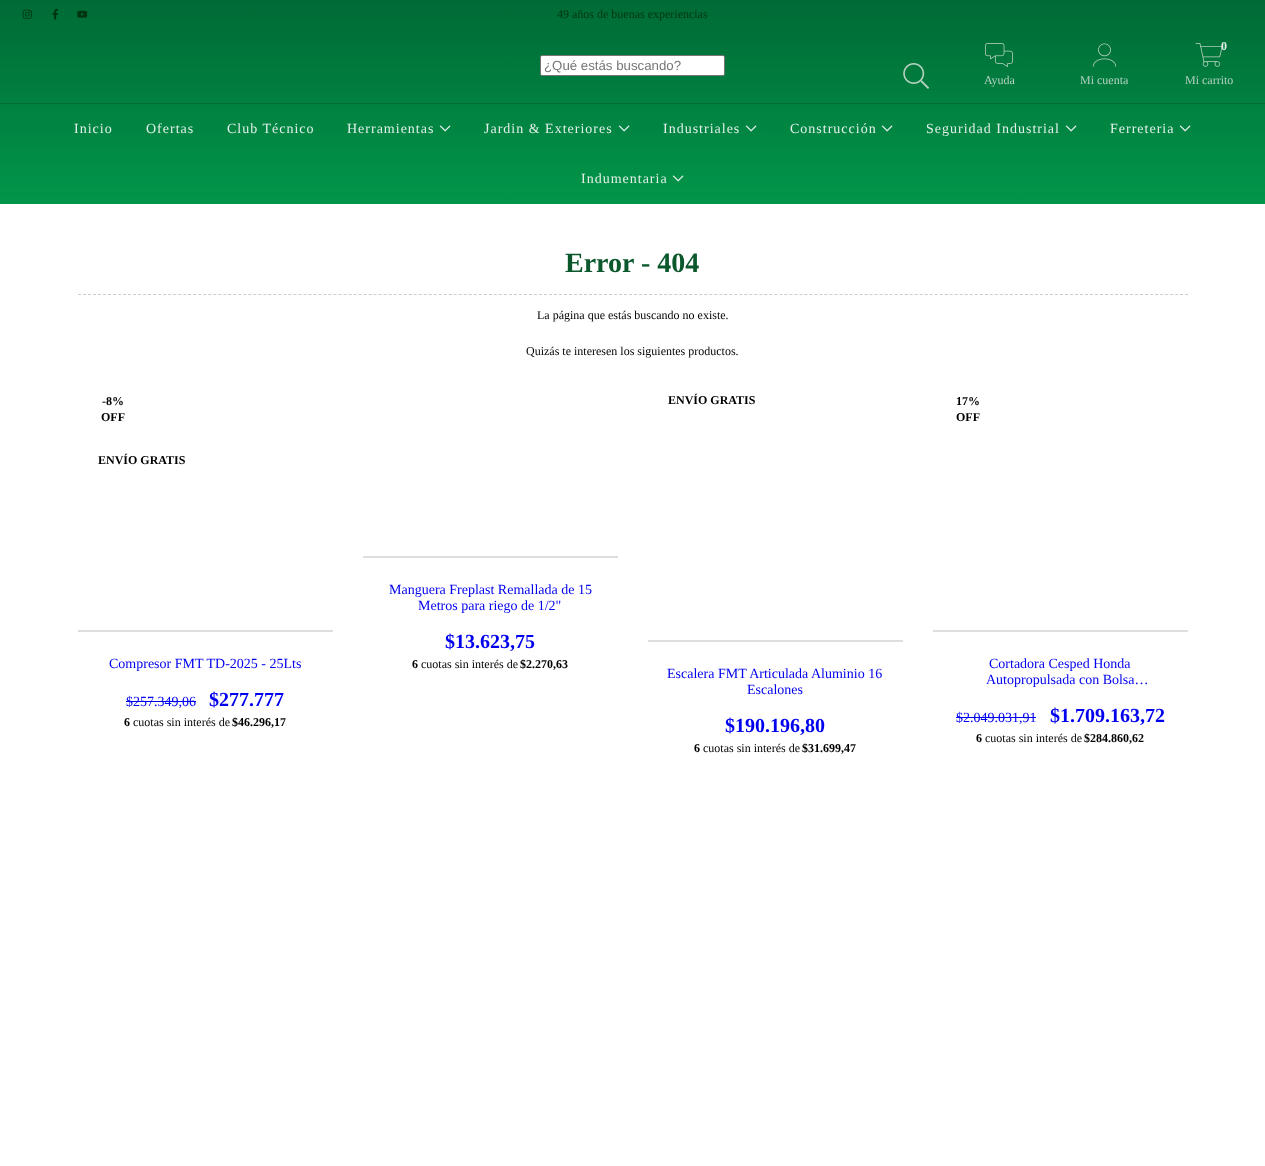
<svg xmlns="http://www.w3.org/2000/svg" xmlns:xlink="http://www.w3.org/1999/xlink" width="1265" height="1166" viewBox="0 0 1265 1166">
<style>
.cls-1{font:12px Liberation Serif;fill:#003512}
.cls-2{font:13.25px Liberation Sans;fill:#757575}
.cls-3{font:12px Liberation Serif;fill:#b5d1bf}
.cls-4{font:bold 12px Liberation Serif;fill:#e3f0ea}
.cls-5{font:14px Liberation Serif;letter-spacing:1px;fill:#e3f0ea}
.cls-6{font:bold 28px Liberation Serif;fill:#0b582c}
.cls-7{font:12px Liberation Serif;fill:#000000}
.cls-8{font:bold 12px Liberation Serif;fill:#000000}
.cls-9{font:14px Liberation Serif;fill:#0000ee}
.cls-10{font:bold 20px Liberation Serif;fill:#0000ee}
</style>
<defs>
<linearGradient id="g1" gradientUnits="userSpaceOnUse" x1="633" y1="0" x2="633" y2="204"><stop offset="0" stop-color="#006a36"/><stop offset="1" stop-color="#019649"/></linearGradient>
</defs>
<rect width="100%" height="100%" fill="#ffffff"/>
<rect fill="url(#g1)" x="0" y="0" width="1265" height="204"/>
<image xlink:href="image0.png" x="22" y="9" width="10" height="10"/>
<image xlink:href="image1.png" x="52" y="9" width="6" height="11"/>
<image xlink:href="image2.png" x="77" y="10" width="11" height="8"/>
<rect fill="#ffffff" stroke="#767676" x="540.5" y="55.5" width="184" height="20" rx="1.5"/>
<image xlink:href="image3.png" x="903" y="63" width="26" height="26"/>
<image xlink:href="image4.png" x="985" y="43" width="28" height="24"/>
<image xlink:href="image5.png" x="1092" y="43" width="25" height="24"/>
<image xlink:href="image6.png" x="1195" y="43" width="28" height="24"/>
<rect fill="#006a36" x="0" y="103" width="1265" height="1"/>
<image xlink:href="image7.png" x="439" y="125" width="12" height="7"/>
<image xlink:href="image7.png" x="618" y="125" width="12" height="7"/>
<image xlink:href="image7.png" x="745" y="125" width="12" height="7"/>
<image xlink:href="image7.png" x="881" y="125" width="12" height="7"/>
<image xlink:href="image7.png" x="1065" y="125" width="12" height="7"/>
<image xlink:href="image7.png" x="1179" y="125" width="12" height="7"/>
<image xlink:href="image8.png" x="672" y="175" width="12" height="7"/>
<path fill="none" stroke="#cccccc" stroke-dasharray="3 2.01" d="M78 294.5H1188"/>
<rect fill="#dddedf" x="78" y="630" width="255" height="2"/>
<rect fill="#0000ee" x="126" y="701" width="70" height="1"/>
<rect fill="#dddedf" x="363" y="556" width="255" height="2"/>
<rect fill="#dddedf" x="648" y="640" width="255" height="2"/>
<rect fill="#dddedf" x="933" y="630" width="255" height="2"/>
<rect fill="#0000ee" x="956" y="717" width="80" height="1"/>
<text class="cls-1" x="557" y="18">49 años de buenas experiencias</text>
<text class="cls-2" x="544" y="70">¿Qué estás buscando?</text>
<text class="cls-3" x="984" y="84">Ayuda</text>
<text class="cls-3" x="1080" y="84">Mi cuenta</text>
<text class="cls-4" x="1221" y="50">0</text>
<text class="cls-3" x="1185" y="84">Mi carrito</text>
<text class="cls-5" x="74" y="133">Inicio</text>
<text class="cls-5" x="146" y="133">Ofertas</text>
<text class="cls-5" x="227" y="133">Club Técnico</text>
<text class="cls-5" x="347" y="133">Herramientas</text>
<text class="cls-5" x="484" y="133">Jardin &amp; Exteriores</text>
<text class="cls-5" x="663" y="133">Industriales</text>
<text class="cls-5" x="790" y="133">Construcción</text>
<text class="cls-5" x="926" y="133">Seguridad Industrial</text>
<text class="cls-5" x="1110" y="133">Ferreteria</text>
<text class="cls-5" x="581" y="183">Indumentaria</text>
<text class="cls-6" x="565" y="272">Error - 404</text>
<text class="cls-7" x="537" y="319">La página que estás buscando no existe.</text>
<text class="cls-7" x="526" y="355">Quizás te interesen los siguientes productos.</text>
<text class="cls-8" x="102" y="405">-8%</text>
<text class="cls-8" x="101" y="421">OFF</text>
<text class="cls-8" x="98" y="464">ENVÍO GRATIS</text>
<text class="cls-9" x="109" y="668">Compresor FMT TD-2025 - 25Lts</text>
<text class="cls-9" x="126" y="706">$257.349,06</text>
<text class="cls-10" x="209" y="706">$277.777</text>
<text class="cls-8" x="124" y="726">6</text>
<text class="cls-7" x="133" y="726">cuotas sin interés de</text>
<text class="cls-8" x="232" y="726">$46.296,17</text>
<text class="cls-9" x="389" y="594">Manguera Freplast Remallada de 15</text>
<text class="cls-9" x="418" y="610">Metros para riego de 1/2"</text>
<text class="cls-10" x="445" y="648">$13.623,75</text>
<text class="cls-8" x="412" y="668">6</text>
<text class="cls-7" x="421" y="668">cuotas sin interés de</text>
<text class="cls-8" x="520" y="668">$2.270,63</text>
<text class="cls-8" x="668" y="404">ENVÍO GRATIS</text>
<text class="cls-9" x="667" y="678">Escalera FMT Articulada Aluminio 16</text>
<text class="cls-9" x="747" y="694">Escalones</text>
<text class="cls-10" x="725" y="732">$190.196,80</text>
<text class="cls-8" x="694" y="752">6</text>
<text class="cls-7" x="703" y="752">cuotas sin interés de</text>
<text class="cls-8" x="802" y="752">$31.699,47</text>
<text class="cls-8"><tspan x="956" y="405">17%</tspan><tspan x="956" y="421">OFF</tspan></text>
<text class="cls-9" x="989" y="668">Cortadora Cesped Honda</text>
<text class="cls-9" x="986" y="684">Autopropulsada con Bolsa…</text>
<text class="cls-9" x="956" y="722">$2.049.031,91</text>
<text class="cls-10" x="1050" y="722">$1.709.163,72</text>
<text class="cls-8" x="976" y="742">6</text>
<text class="cls-7" x="985" y="742">cuotas sin interés de</text>
<text class="cls-8" x="1084" y="742">$284.860,62</text>
</svg>
